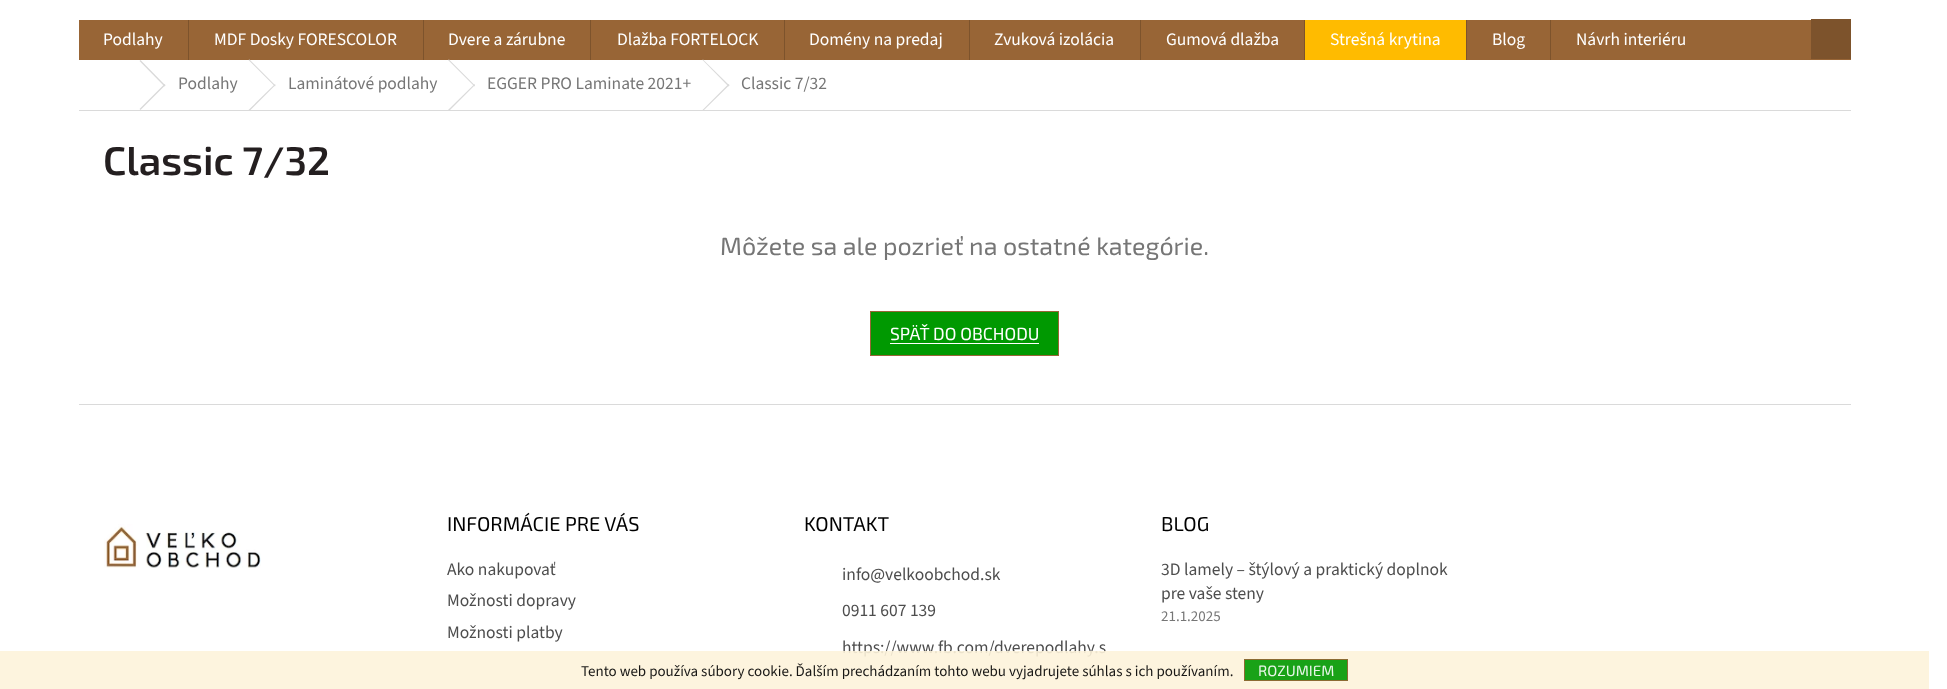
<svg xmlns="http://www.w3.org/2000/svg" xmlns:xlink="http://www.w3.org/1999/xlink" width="1947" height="689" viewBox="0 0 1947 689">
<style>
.cls-1{font:17.5px 'Source Sans 3';fill:#ffffff}
.cls-2{font:17.5px 'Source Sans 3';fill:#767676}
.cls-3{font:600 40px 'Exo 2';fill:#241f20}
.cls-4{font:25px 'Exo 2';fill:#767676}
.cls-5{font:17.5px 'Exo 2';fill:#ffffff}
.cls-6{font:20px 'Exo 2';fill:#000000}
.cls-7{font:17.5px 'Source Sans 3';fill:#4d4d4d}
.cls-8{font:15px 'Source Sans 3';fill:#767676}
.cls-9{font:15px 'Source Sans 3';fill:#191816}
.cls-10{font:15px 'Exo 2';fill:#e8f6e8}
</style>
<rect width="100%" height="100%" fill="#ffffff"/>
<rect fill="#986536" x="79" y="20" width="1772" height="40"/>
<rect fill="#7d532c" x="188" y="20" width="1" height="40"/>
<rect fill="#7d532c" x="423" y="20" width="1" height="40"/>
<rect fill="#7d532c" x="590" y="20" width="1" height="40"/>
<rect fill="#7d532c" x="784" y="20" width="1" height="40"/>
<rect fill="#7d532c" x="969" y="20" width="1" height="40"/>
<rect fill="#7d532c" x="1140" y="20" width="1" height="40"/>
<rect fill="#ffbb00" x="1305" y="20" width="161" height="40"/>
<rect fill="#7d532c" x="1304" y="20" width="1" height="40"/>
<rect fill="#7d532c" x="1466" y="20" width="1" height="40"/>
<rect fill="#7d532c" x="1550" y="20" width="1" height="40"/>
<rect fill="#7d532c" x="1811" y="19" width="40" height="40"/>
<rect fill="#dadada" x="79" y="110" width="1772" height="1"/>
<path fill="#dadada" d="M139.5 61L140.5 60L165.5 85.5L164.5 86.5Z"/>
<path fill="#dadada" d="M164.5 84L165.5 85L140.5 110L139.5 109Z"/>
<path fill="#dadada" d="M248.5 60L249.5 59.5L275.5 85.5L275 86.5Z"/>
<path fill="#dadada" d="M275 84L275.5 85L249.5 111L248.5 110Z"/>
<path fill="#dadada" d="M448 60L449 59.5L475 85.5L474.5 86.5Z"/>
<path fill="#dadada" d="M474.5 84L475 85L449 111L448 110Z"/>
<path fill="#dadada" d="M702.5 60L703 59.5L729.5 85.5L728.5 86.5Z"/>
<path fill="#dadada" d="M728.5 84L729.5 85L703 111L702.5 110Z"/>
<rect fill="#009901" stroke="#986536" x="870.5" y="311.5" width="188" height="44"/>
<rect fill="#ffffff" x="890" y="343" width="149" height="1"/>
<image xlink:href="image0.png" x="104" y="524" width="157" height="44"/>
<rect fill="#dadada" x="79" y="404" width="1772" height="1"/>
<text class="cls-1" x="103" y="45">Podlahy</text>
<text class="cls-1" x="214" y="45">MDF Dosky FORESCOLOR</text>
<text class="cls-1" x="448" y="45">Dvere a zárubne</text>
<text class="cls-1" x="617" y="45">Dlažba FORTELOCK</text>
<text class="cls-1" x="809" y="45">Domény na predaj</text>
<text class="cls-1" x="994" y="45">Zvuková izolácia</text>
<text class="cls-1" x="1166" y="45">Gumová dlažba</text>
<text class="cls-1" x="1330" y="45">Strešná krytina</text>
<text class="cls-1" x="1492" y="45">Blog</text>
<text class="cls-1" x="1576" y="45">Návrh interiéru</text>
<text class="cls-2" x="178" y="89">Podlahy</text>
<text class="cls-2" x="288" y="89">Laminátové podlahy</text>
<text class="cls-2" x="487" y="89">EGGER PRO Laminate 2021+</text>
<text class="cls-2" x="741" y="89">Classic 7/32</text>
<text class="cls-3" x="103" y="175">Classic 7/32</text>
<text class="cls-4" x="720" y="255">Môžete sa ale pozrieť na ostatné kategórie.</text>
<text class="cls-5" x="890" y="340">SPÄŤ DO OBCHODU</text>
<text class="cls-6" x="447" y="531">INFORMÁCIE PRE VÁS</text>
<text class="cls-7"><tspan x="447" y="575">Ako nakupovať</tspan><tspan x="447" y="606">Možnosti dopravy</tspan><tspan x="447" y="638">Možnosti platby</tspan></text>
<text class="cls-6" x="804" y="531">KONTAKT</text>
<text class="cls-7" x="842" y="580">info@velkoobchod.sk</text>
<text class="cls-7" x="842" y="616">0911 607 139</text>
<text class="cls-7" x="842" y="653">https://www.fb.com/dverepodlahy.s</text>
<text class="cls-6" x="1161" y="531">BLOG</text>
<text class="cls-7"><tspan x="1161" y="575">3D lamely – štýlový a praktický doplnok</tspan><tspan x="1161" y="599">pre vaše steny</tspan></text>
<text class="cls-8" x="1161" y="621">21.1.2025</text>
<rect fill="#fdf3da" fill-opacity="0.9" x="0" y="651" width="1929" height="38"/>
<text class="cls-9" x="581" y="676">Tento web používa súbory cookie. Ďalším prechádzaním tohto webu vyjadrujete súhlas s ich používaním.</text>
<rect fill="#009901" fill-opacity="0.9" stroke="#8b6b33" x="1244.5" y="659.5" width="103" height="21"/>
<text class="cls-10" x="1258" y="676">ROZUMIEM</text>
</svg>
